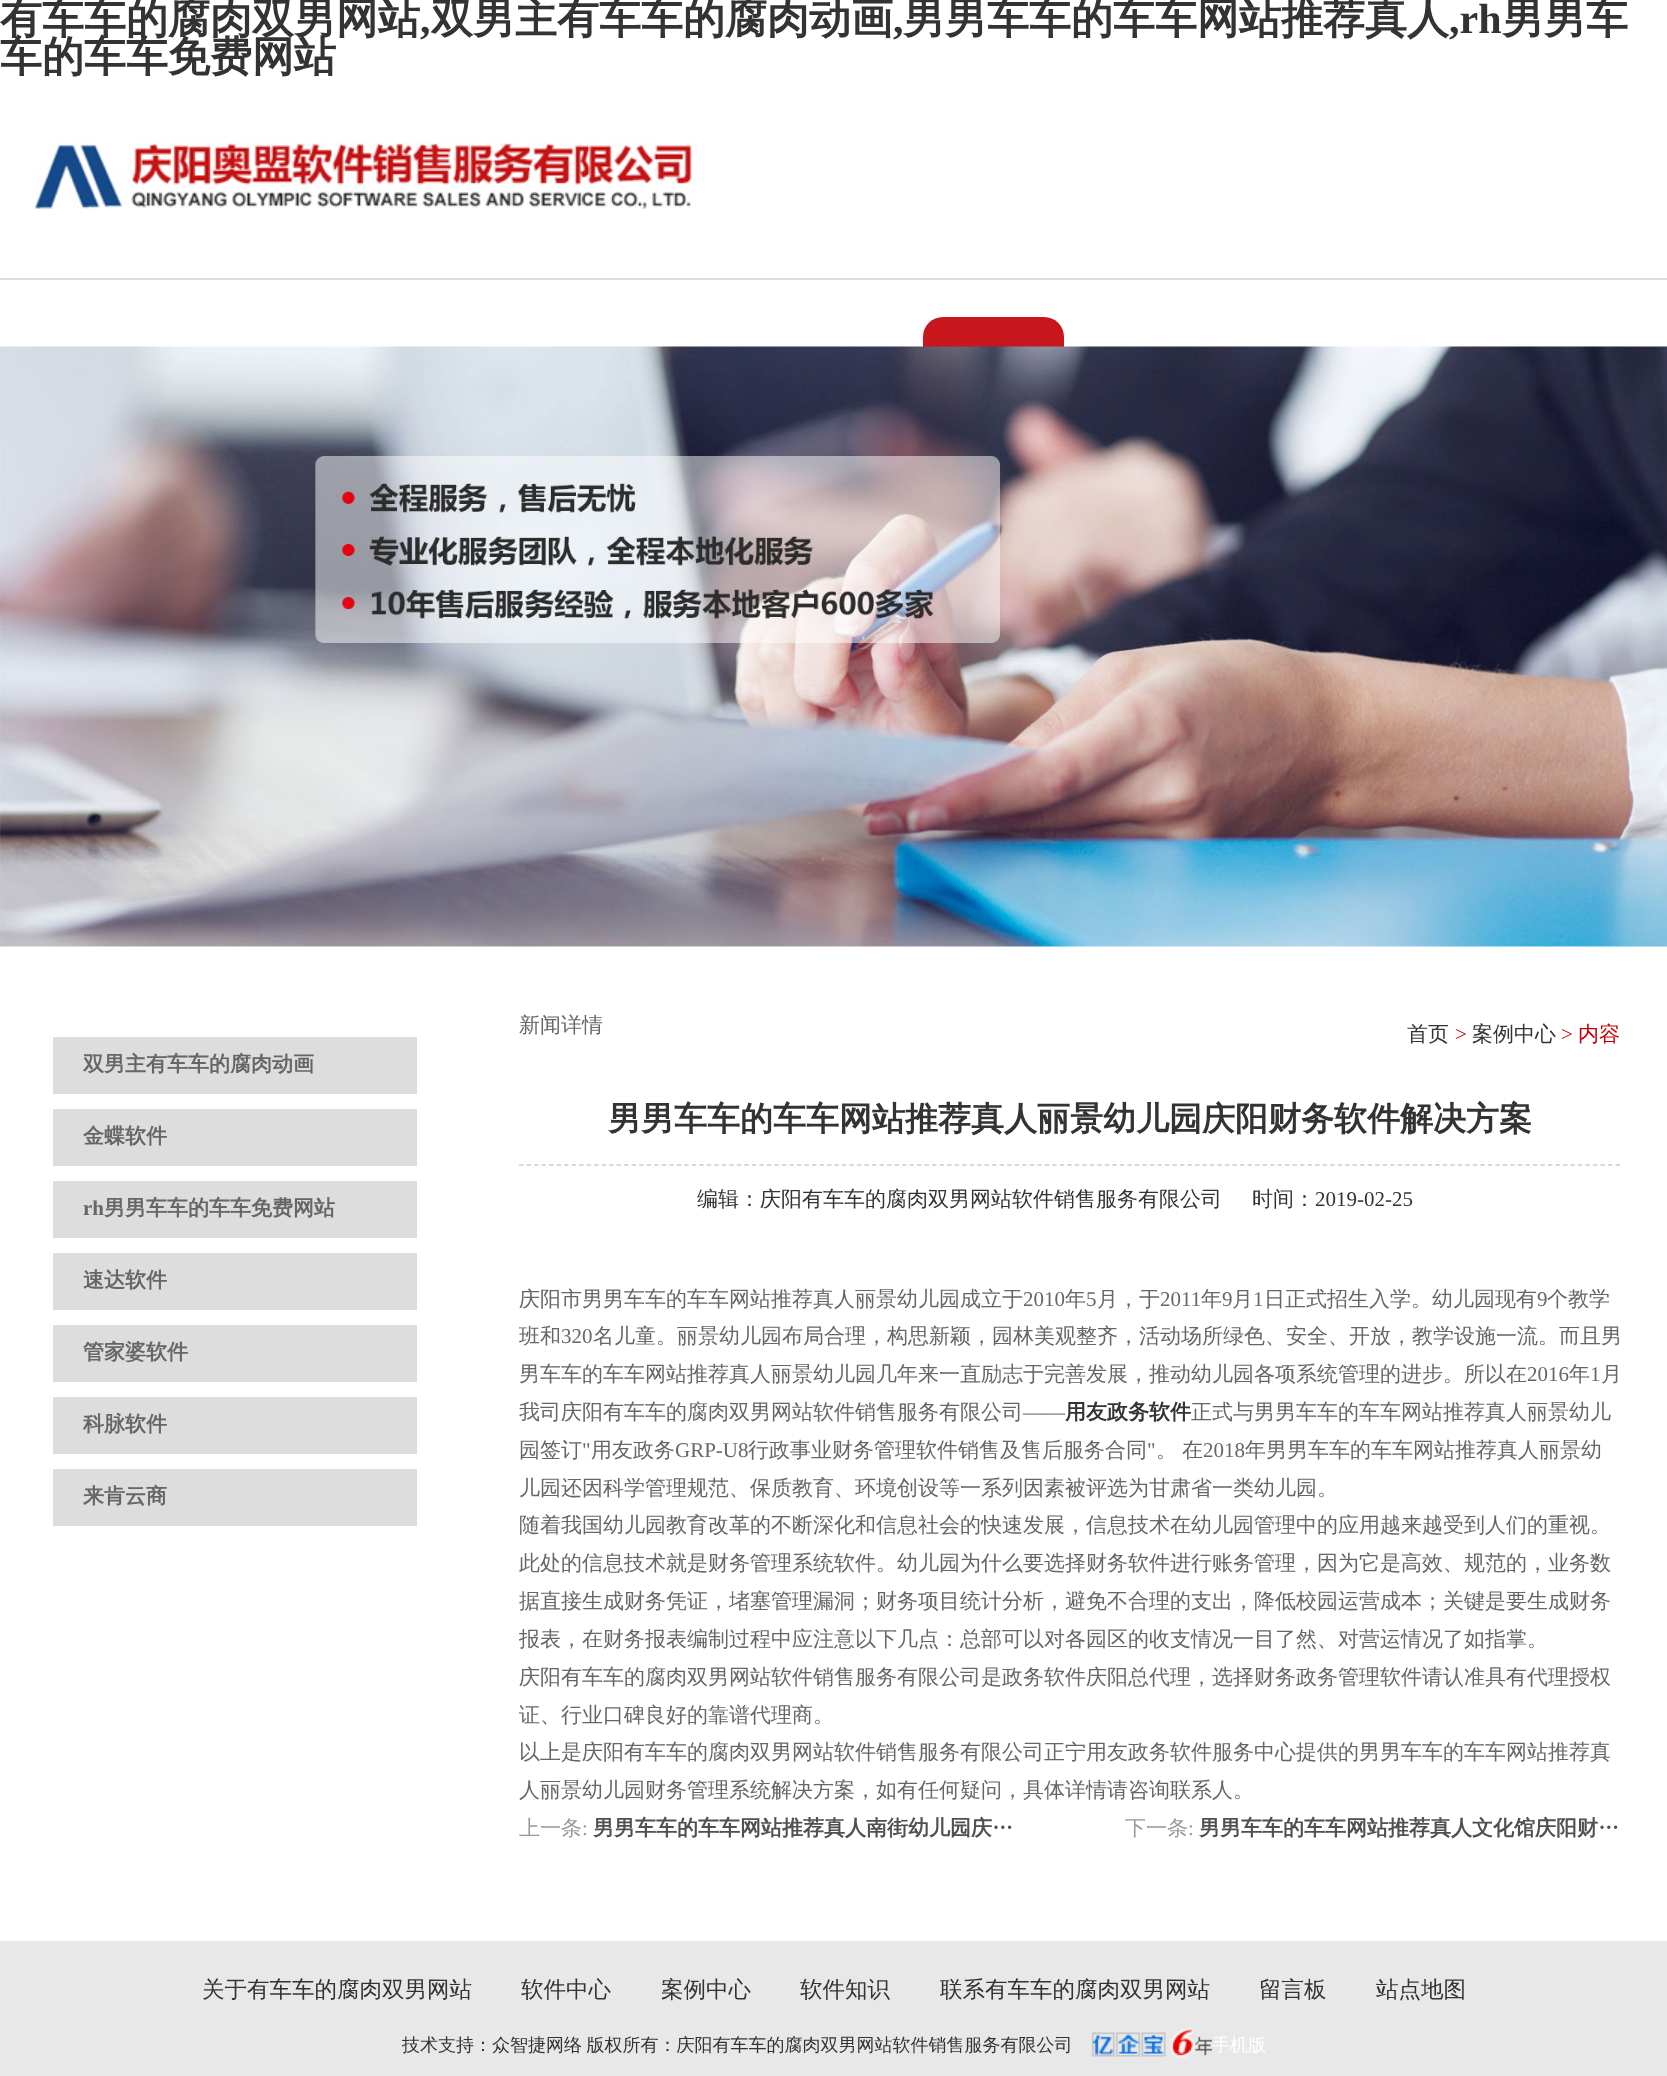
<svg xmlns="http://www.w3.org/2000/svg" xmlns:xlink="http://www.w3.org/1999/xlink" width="1667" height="2076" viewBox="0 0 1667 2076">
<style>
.cls-1{font:bold 42px WenQuanYi Zen Hei;fill:#333333}
.cls-2{font:bold 42px Liberation Serif;fill:#333333}
.cls-3{font:bold 21px WenQuanYi Zen Hei;fill:#666666}
.cls-4{font:bold 21px Liberation Serif;fill:#666666}
.cls-5{font:500 21px WenQuanYi Zen Hei;fill:#666666}
.cls-6{font:500 21px WenQuanYi Zen Hei;fill:#333333}
.cls-7{font:21px Liberation Serif;fill:#c10005}
.cls-8{font:500 21px WenQuanYi Zen Hei;fill:#c10005}
.cls-9{font:bold 33px WenQuanYi Zen Hei;fill:#333333}
.cls-10{font:21px Liberation Serif;fill:#333333}
.cls-11{font:21px Liberation Serif;fill:#666666}
.cls-12{font:bold 21px WenQuanYi Zen Hei;fill:#333333}
.cls-13{font:500 21px WenQuanYi Zen Hei;fill:#999999}
.cls-14{font:21px Liberation Serif;fill:#999999}
.cls-15{font:bold 21px WenQuanYi Zen Hei;fill:#505050}
.cls-16{font:500 22.5px WenQuanYi Zen Hei;fill:#333333}
.cls-17{font:500 18px WenQuanYi Zen Hei;fill:#333333}
.cls-18{font:500 18px WenQuanYi Zen Hei;fill:#ffffff}
</style>
<rect width="100%" height="100%" fill="#ffffff"/>
<rect fill="#dddddd" x="0" y="278" width="1667" height="2"/>
<image xlink:href="image0.png" x="32" y="141" width="664" height="68"/>
<rect fill="#c8161d" x="923" y="317" width="141" height="67" rx="20"/>
<image xlink:href="image1.png" x="0" y="346" width="1667" height="601"/>
<rect fill="#dddddd" x="53" y="1037" width="364" height="57"/>
<rect fill="#dddddd" x="53" y="1109" width="364" height="57"/>
<rect fill="#dddddd" x="53" y="1181" width="364" height="57"/>
<rect fill="#dddddd" x="53" y="1253" width="364" height="57"/>
<rect fill="#dddddd" x="53" y="1325" width="364" height="57"/>
<rect fill="#dddddd" x="53" y="1397" width="364" height="57"/>
<rect fill="#dddddd" x="53" y="1469" width="364" height="57"/>
<path fill="none" stroke="#cccccc" stroke-width="1.5" stroke-dasharray="4.5 3.01" d="M519 1165H1621.5"/>
<rect fill="#e8e8e8" x="0" y="1941" width="1667" height="135"/>
<image xlink:href="image2.png" x="1091" y="2028" width="121" height="30"/>
<text class="cls-1" x="0" y="33">有车车的腐肉双男网站</text>
<text class="cls-2" x="420" y="33">,</text>
<text class="cls-1" x="431" y="33">双男主有车车的腐肉动画</text>
<text class="cls-2" x="893" y="33">,</text>
<text class="cls-1" x="903" y="33">男男车车的车车网站推荐真人</text>
<text class="cls-2" x="1449" y="33">,rh</text>
<text class="cls-1" x="1502" y="33">男男车</text>
<text class="cls-1" x="0" y="71">车的车车免费网站</text>
<text class="cls-3" x="83" y="1071">双男主有车车的腐肉动画</text>
<text class="cls-3" x="83" y="1143">金蝶软件</text>
<text class="cls-4" x="83" y="1215">rh</text>
<text class="cls-3" x="104" y="1215">男男车车的车车免费网站</text>
<text class="cls-3" x="83" y="1287">速达软件</text>
<text class="cls-3" x="83" y="1359">管家婆软件</text>
<text class="cls-3" x="83" y="1431">科脉软件</text>
<text class="cls-3" x="83" y="1503">来肯云商</text>
<text class="cls-5" x="519" y="1032">新闻详情</text>
<text class="cls-6" x="1407" y="1041">首页</text>
<text class="cls-7" x="1455" y="1041">&gt;</text>
<text class="cls-6" x="1472" y="1041">案例中心</text>
<text class="cls-7" x="1561" y="1041">&gt;</text>
<text class="cls-8" x="1578" y="1041">内容</text>
<text class="cls-9" x="608" y="1130">男男车车的车车网站推荐真人丽景幼儿园庆阳财务软件解决方案</text>
<text class="cls-6" x="697" y="1206">编辑：庆阳有车车的腐肉双男网站软件销售服务有限公司</text>
<text class="cls-6" x="1252" y="1206">时间：</text>
<text class="cls-10" x="1315" y="1206">2019-02-25</text>
<text class="cls-5" x="519" y="1306">庆阳市男男车车的车车网站推荐真人丽景幼儿园成立于</text>
<text class="cls-11" x="1023" y="1306">2010</text>
<text class="cls-5" x="1065" y="1306">年</text>
<text class="cls-11" x="1086" y="1306">5</text>
<text class="cls-5" x="1097" y="1306">月，于</text>
<text class="cls-11" x="1160" y="1306">2011</text>
<text class="cls-5" x="1201" y="1306">年</text>
<text class="cls-11" x="1222" y="1306">9</text>
<text class="cls-5" x="1232" y="1306">月</text>
<text class="cls-11" x="1253" y="1306">1</text>
<text class="cls-5" x="1264" y="1306">日正式招生入学。幼儿园现有</text>
<text class="cls-11" x="1537" y="1306">9</text>
<text class="cls-5" x="1547" y="1306">个教学</text>
<text class="cls-5" x="519" y="1343">班和</text>
<text class="cls-11" x="561" y="1343">320</text>
<text class="cls-5" x="593" y="1343">名儿童。丽景幼儿园布局合理，构思新颖，园林美观整齐，活动场所绿色、安全、开放，教学设施一流。而且男</text>
<text class="cls-5" x="519" y="1381">男车车的车车网站推荐真人丽景幼儿园几年来一直励志于完善发展，推动幼儿园各项系统管理的进步。所以在</text>
<text class="cls-11" x="1527" y="1381">2016</text>
<text class="cls-5" x="1569" y="1381">年</text>
<text class="cls-11" x="1590" y="1381">1</text>
<text class="cls-5" x="1601" y="1381">月</text>
<text class="cls-5" x="519" y="1419">我司庆阳有车车的腐肉双男网站软件销售服务有限公司</text>
<text class="cls-11" x="1023" y="1419">——</text>
<text class="cls-12" x="1065" y="1419">用友政务软件</text>
<text class="cls-5" x="1191" y="1419">正式与男男车车的车车网站推荐真人丽景幼儿</text>
<text class="cls-5" x="519" y="1457">园签订</text>
<text class="cls-11" x="582" y="1457">"</text>
<text class="cls-5" x="591" y="1457">用友政务</text>
<text class="cls-11" x="675" y="1457">GRP-U8</text>
<text class="cls-5" x="748" y="1457">行政事业财务管理软件销售及售后服务合同</text>
<text class="cls-11" x="1147" y="1457">"</text>
<text class="cls-5" x="1156" y="1457">。</text>
<text class="cls-5" x="1182" y="1457">在</text>
<text class="cls-11" x="1203" y="1457">2018</text>
<text class="cls-5" x="1245" y="1457">年男男车车的车车网站推荐真人丽景幼</text>
<text class="cls-5"><tspan x="519" y="1495">儿园还因科学管理规范、保质教育、环境创设等一系列因素被评选为甘肃省一类幼儿园。</tspan><tspan x="519" y="1532">随着我国幼儿园教育改革的不断深化和信息社会的快速发展，信息技术在幼儿园管理中的应用越来越受到人们的重视。</tspan><tspan x="519" y="1570">此处的信息技术就是财务管理系统软件。幼儿园为什么要选择财务软件进行账务管理，因为它是高效、规范的，业务数</tspan><tspan x="519" y="1608">据直接生成财务凭证，堵塞管理漏洞；财务项目统计分析，避免不合理的支出，降低校园运营成本；关键是要生成财务</tspan><tspan x="519" y="1646">报表，在财务报表编制过程中应注意以下几点：总部可以对各园区的收支情况一目了然、对营运情况了如指掌。</tspan><tspan x="519" y="1684">庆阳有车车的腐肉双男网站软件销售服务有限公司是政务软件庆阳总代理，选择财务政务管理软件请认准具有代理授权</tspan><tspan x="519" y="1722">证、行业口碑良好的靠谱代理商。</tspan><tspan x="519" y="1759">以上是庆阳有车车的腐肉双男网站软件销售服务有限公司正宁用友政务软件服务中心提供的男男车车的车车网站推荐真</tspan><tspan x="519" y="1797">人丽景幼儿园财务管理系统解决方案，如有任何疑问，具体详情请咨询联系人。</tspan></text>
<text class="cls-13" x="519" y="1835">上一条</text>
<text class="cls-14" x="582" y="1835">:</text>
<text class="cls-15" x="593" y="1835">男男车车的车车网站推荐真人南街幼儿园庆…</text>
<text class="cls-13" x="1125" y="1835">下一条</text>
<text class="cls-14" x="1188" y="1835">:</text>
<text class="cls-15" x="1199" y="1835">男男车车的车车网站推荐真人文化馆庆阳财…</text>
<text class="cls-16" x="202" y="1997">关于有车车的腐肉双男网站</text>
<text class="cls-16" x="521" y="1997">软件中心</text>
<text class="cls-16" x="661" y="1997">案例中心</text>
<text class="cls-16" x="800" y="1997">软件知识</text>
<text class="cls-16" x="940" y="1997">联系有车车的腐肉双男网站</text>
<text class="cls-16" x="1259" y="1997">留言板</text>
<text class="cls-16" x="1376" y="1997">站点地图</text>
<text class="cls-17" x="402" y="2051" word-spacing="-1">技术支持：众智捷网络 版权所有：庆阳有车车的腐肉双男网站软件销售服务有限公司</text>
<text class="cls-18" x="1212" y="2051">手机版</text>
</svg>
